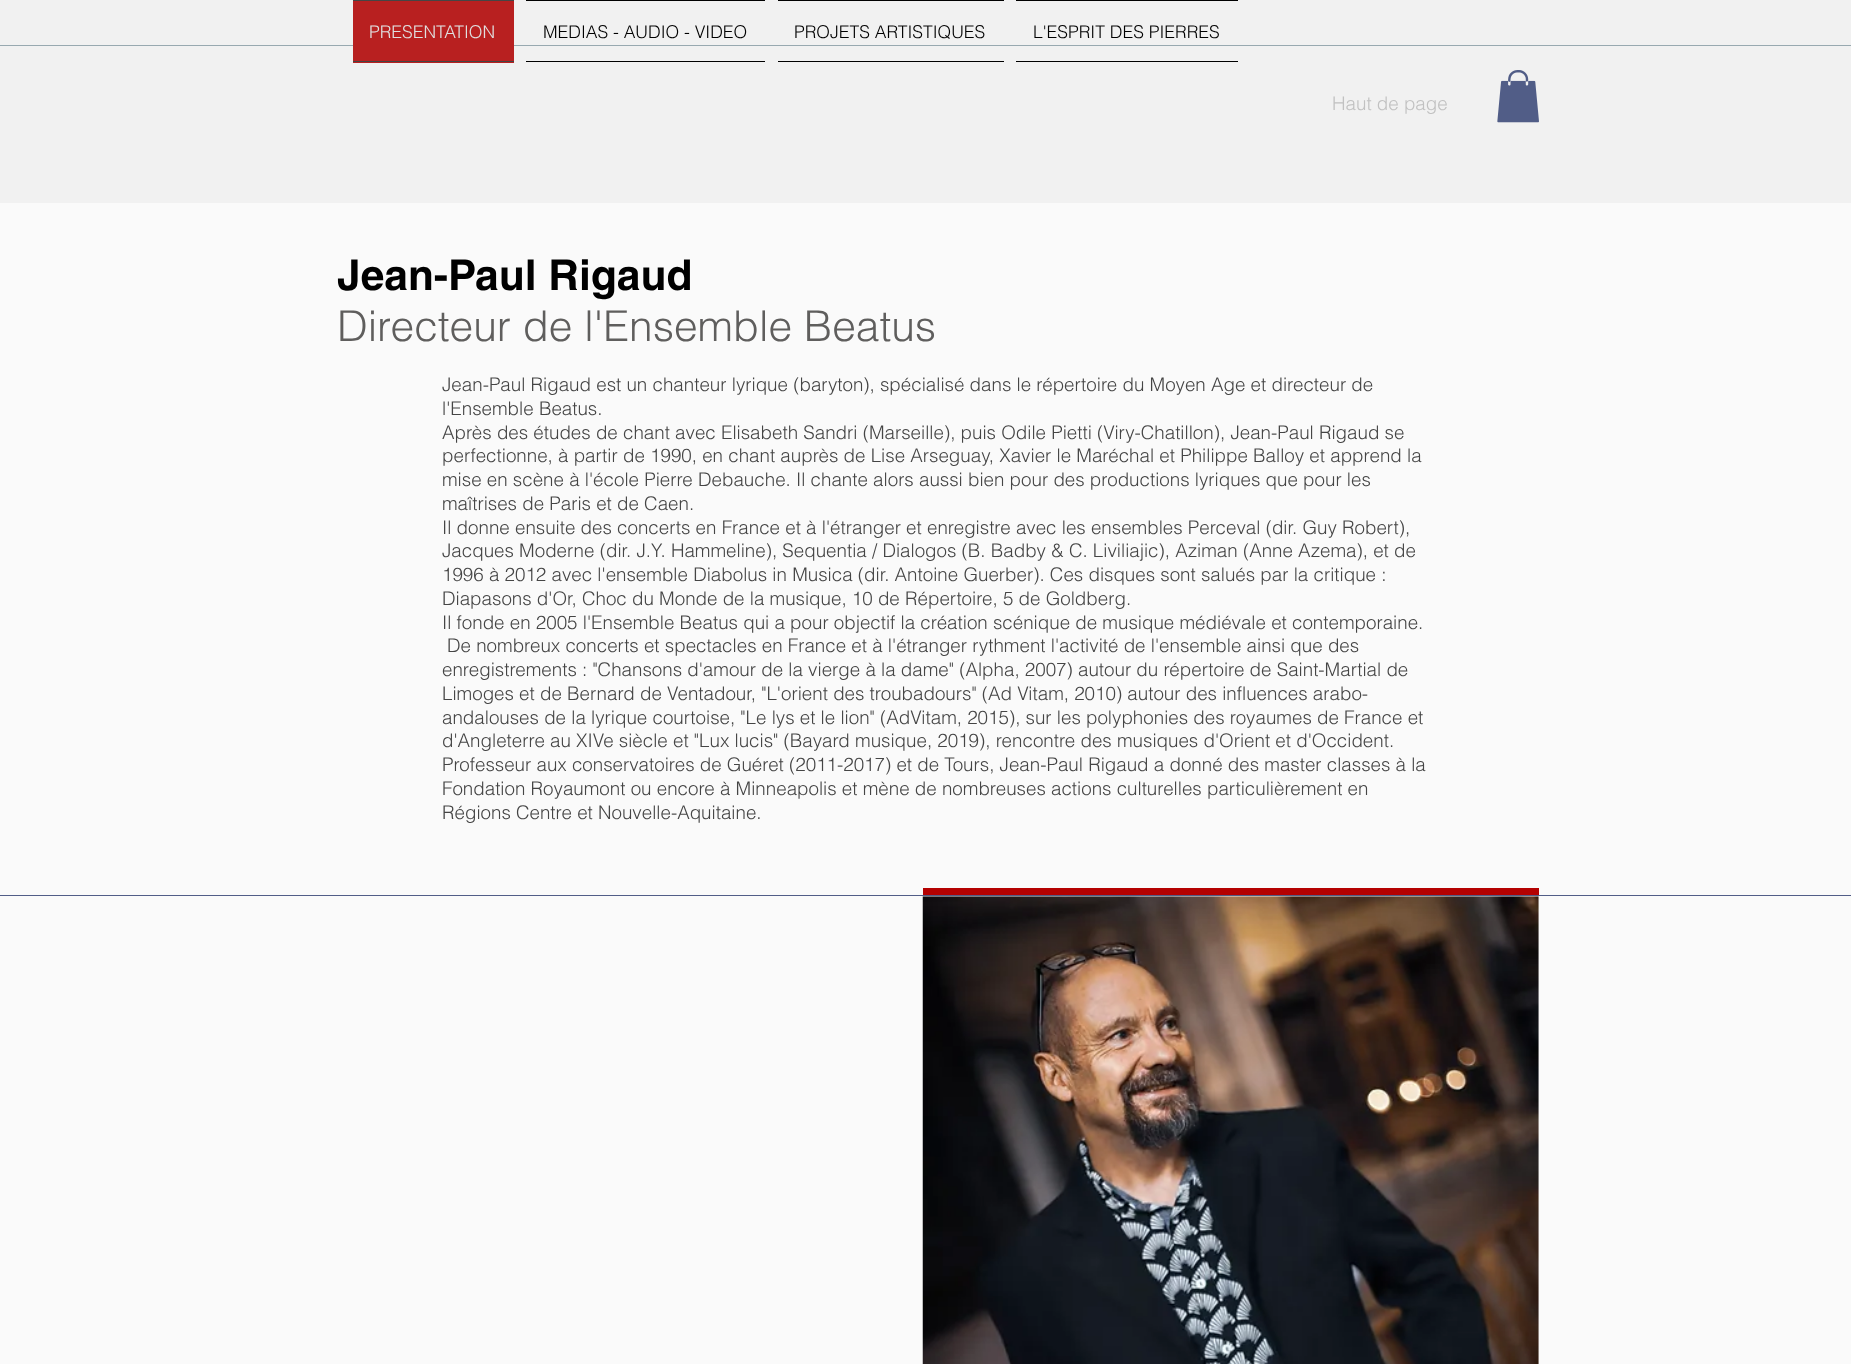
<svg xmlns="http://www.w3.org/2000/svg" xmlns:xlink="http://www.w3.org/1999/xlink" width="1851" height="1364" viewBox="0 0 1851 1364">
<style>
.cls-1{font:300 17.5px helvetica;fill:#e0e0e0}
.cls-2{font:300 17.5px helvetica;fill:#000000}
.cls-3{font:300 18.75px helvetica;fill:#c1c1c1}
.cls-4{font:bold 42.5px helvetica;fill:#000000}
.cls-5{font:300 42.5px helvetica;fill:#5f5e5d}
.cls-6{font:300 18.75px helvetica;fill:#454545}
</style>
<rect width="100%" height="100%" fill="#fafafa"/>
<rect fill="#f1f1f1" x="0" y="0" width="1851" height="203"/>
<rect fill="#98a9b0" x="0" y="45" width="1851" height="1"/>
<rect fill="#b82020" x="353" y="1" width="161" height="62"/>
<rect fill="#454545" x="353" y="0" width="161" height="1"/>
<rect fill="#454545" x="353" y="61" width="161" height="1"/>
<rect fill="#000000" x="526" y="0" width="239" height="1"/>
<rect fill="#000000" x="526" y="61" width="239" height="1"/>
<rect fill="#000000" x="778" y="0" width="226" height="1"/>
<rect fill="#000000" x="778" y="61" width="226" height="1"/>
<rect fill="#000000" x="1016" y="0" width="222" height="1"/>
<rect fill="#000000" x="1016" y="61" width="222" height="1"/>
<image xlink:href="image0.png" x="1497" y="70" width="42" height="53"/>
<rect fill="#b40101" x="923" y="888" width="616" height="7"/>
<rect fill="#515d87" x="0" y="895" width="1851" height="1"/>
<image xlink:href="image1.png" x="922" y="896" width="617" height="468"/>
<text class="cls-1" x="369" y="38">PRESENTATION</text>
<text class="cls-2" x="543" y="38">MEDIAS - AUDIO - VIDEO</text>
<text class="cls-2" x="794" y="38">PROJETS ARTISTIQUES</text>
<text class="cls-2" x="1033" y="38">L'ESPRIT DES PIERRES</text>
<text class="cls-3" x="1332" y="110">Haut de page</text>
<text class="cls-4" x="337" y="290">Jean-Paul Rigaud</text>
<text class="cls-5" x="337" y="341">Directeur de l'Ensemble Beatus</text>
<text class="cls-6"><tspan x="442" y="391">Jean-Paul Rigaud est un chanteur lyrique (baryton), spécialisé dans le répertoire du Moyen Age et directeur de</tspan><tspan x="442" y="415">l'Ensemble Beatus.</tspan><tspan x="442" y="439">Après des études de chant avec Elisabeth Sandri (Marseille), puis Odile Pietti (Viry-Chatillon), Jean-Paul Rigaud se</tspan><tspan x="442" y="462">perfectionne, à partir de 1990, en chant auprès de Lise Arseguay, Xavier le Maréchal et Philippe Balloy et apprend la</tspan><tspan x="442" y="486">mise en scène à l'école Pierre Debauche. Il chante alors aussi bien pour des productions lyriques que pour les</tspan><tspan x="442" y="510">maîtrises de Paris et de Caen.</tspan><tspan x="442" y="534">Il donne ensuite des concerts en France et à l'étranger et enregistre avec les ensembles Perceval (dir. Guy Robert),</tspan><tspan x="442" y="557">Jacques Moderne (dir. J.Y. Hammeline), Sequentia / Dialogos (B. Badby &amp; C. Liviliajic), Aziman (Anne Azema), et de</tspan><tspan x="442" y="581">1996 à 2012 avec l'ensemble Diabolus in Musica (dir. Antoine Guerber). Ces disques sont salués par la critique :</tspan><tspan x="442" y="605">Diapasons d'Or, Choc du Monde de la musique, 10 de Répertoire, 5 de Goldberg.</tspan><tspan x="442" y="629">Il fonde en 2005 l'Ensemble Beatus qui a pour objectif la création scénique de musique médiévale et contemporaine.</tspan></text>
<text class="cls-6" x="447" y="652">De nombreux concerts et spectacles en France et à l'étranger rythment l'activité de l'ensemble ainsi que des</text>
<text class="cls-6"><tspan x="442" y="676">enregistrements : "Chansons d'amour de la vierge à la dame" (Alpha, 2007) autour du répertoire de Saint-Martial de</tspan><tspan x="442" y="700">Limoges et de Bernard de Ventadour, "L'orient des troubadours" (Ad Vitam, 2010) autour des influences arabo-</tspan><tspan x="442" y="724">andalouses de la lyrique courtoise, "Le lys et le lion" (AdVitam, 2015), sur les polyphonies des royaumes de France et</tspan><tspan x="442" y="747">d'Angleterre au XIVe siècle et "Lux lucis" (Bayard musique, 2019), rencontre des musiques d'Orient et d'Occident.</tspan><tspan x="442" y="771">Professeur aux conservatoires de Guéret (2011-2017) et de Tours, Jean-Paul Rigaud a donné des master classes à la</tspan><tspan x="442" y="795">Fondation Royaumont ou encore à Minneapolis et mène de nombreuses actions culturelles particulièrement en</tspan><tspan x="442" y="819">Régions Centre et Nouvelle-Aquitaine.</tspan></text>
</svg>
